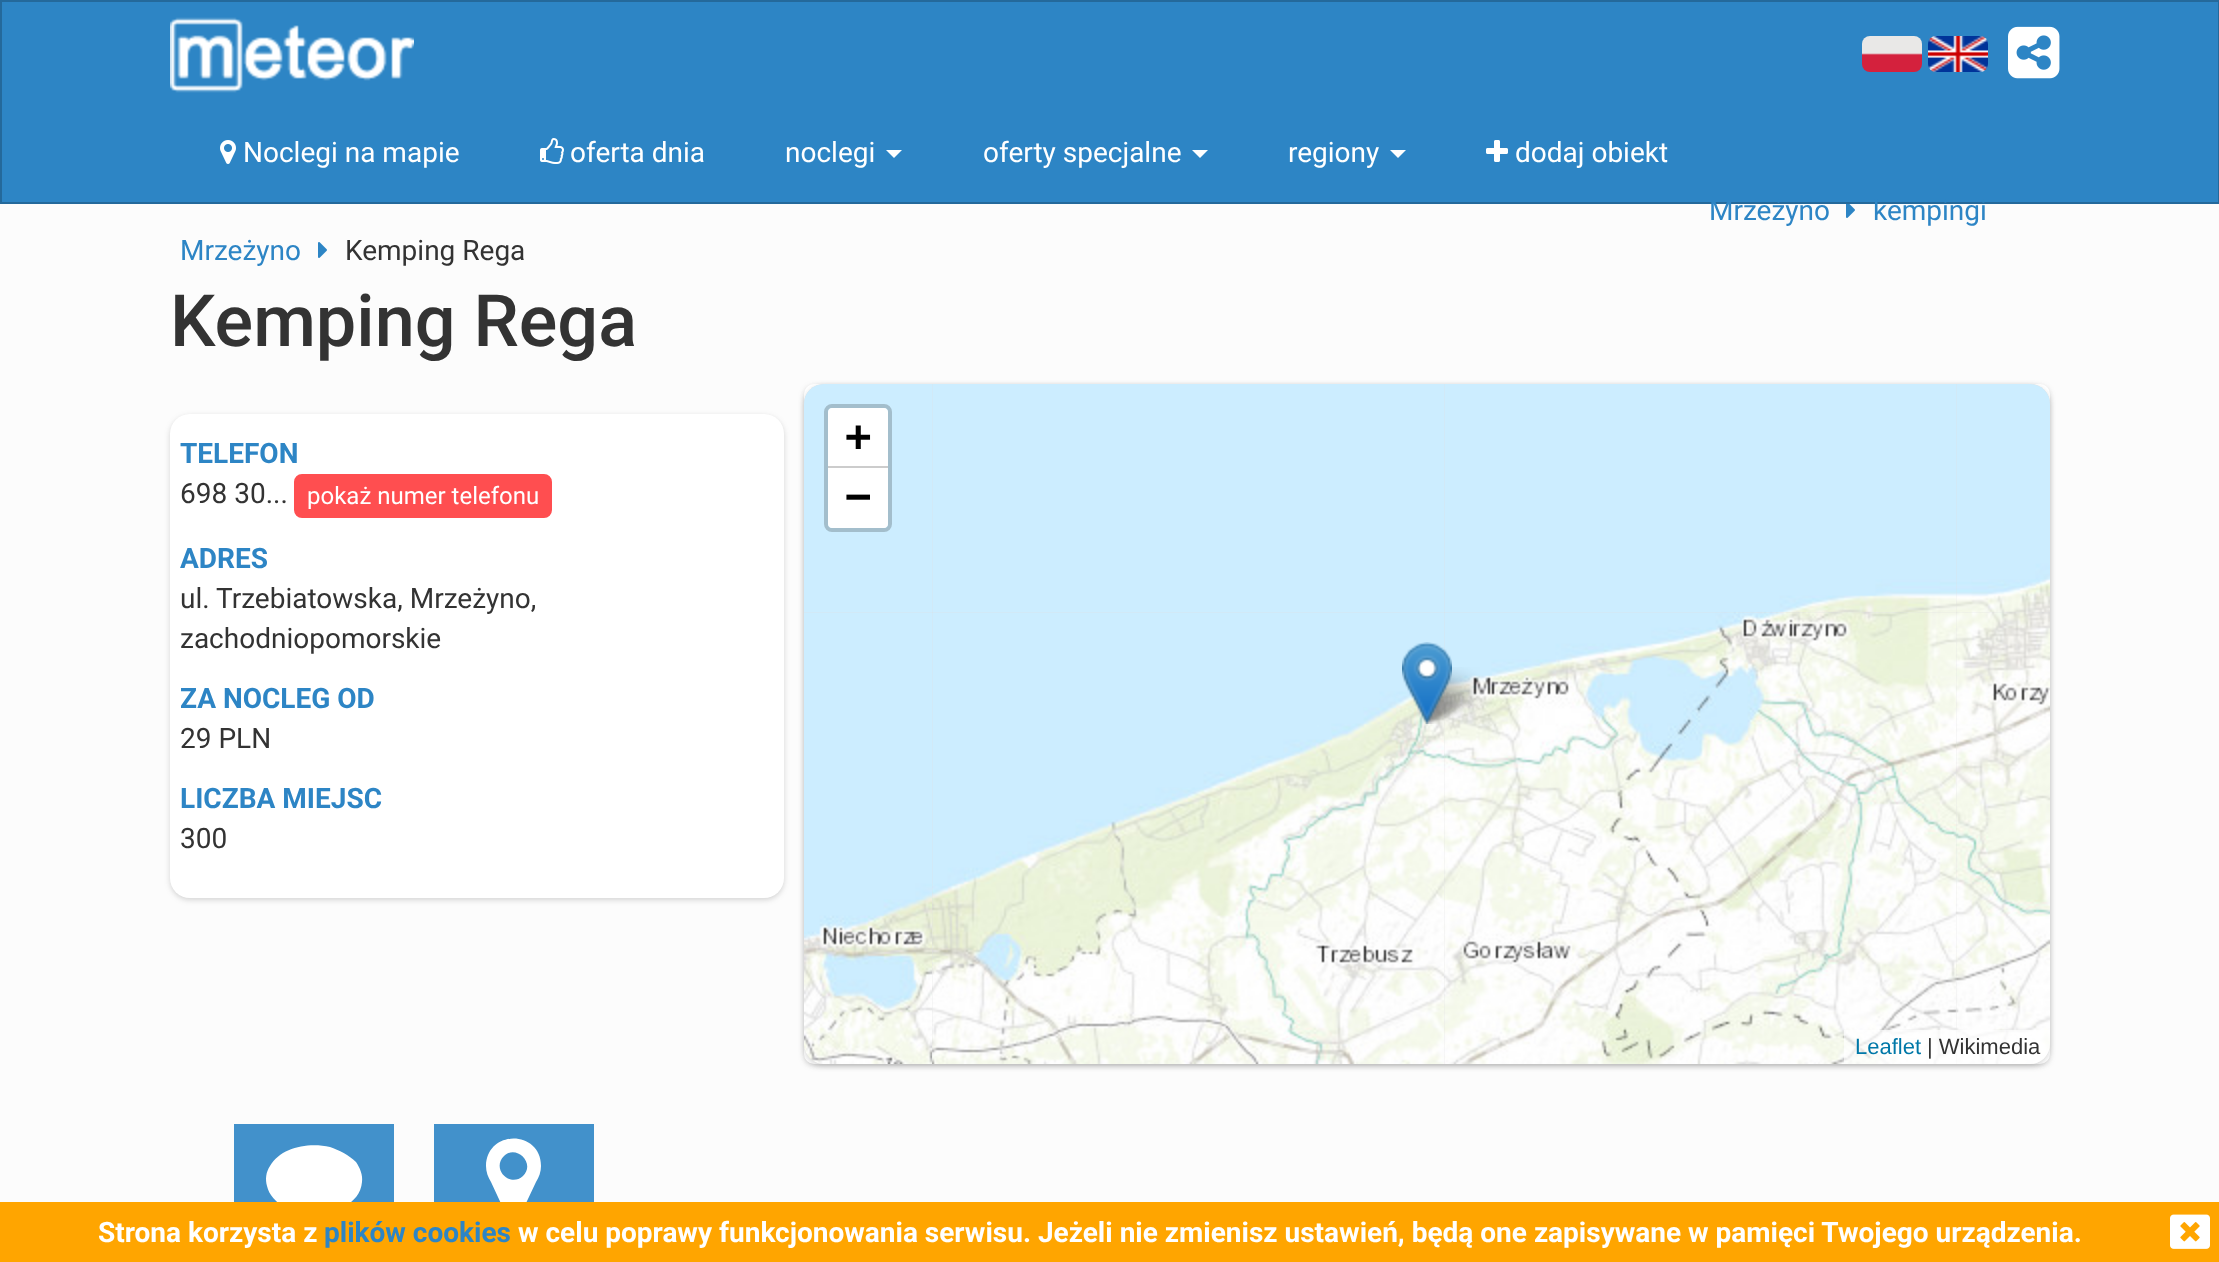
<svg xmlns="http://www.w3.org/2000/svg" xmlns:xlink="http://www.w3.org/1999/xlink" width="2219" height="1262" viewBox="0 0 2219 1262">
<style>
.cls-1{font:28px Roboto;fill:#ffffff}
.cls-2{font:28px Roboto;fill:#2d85c5}
.cls-3{font:28px Roboto;fill:#333333}
.cls-4{font:500 72px Roboto;fill:#333333}
.cls-5{font:bold 28px Roboto;fill:#2d85c5}
.cls-6{font:24px Roboto;fill:#ffffff}
.cls-7{font:bold 44px DejaVu Sans Mono;fill:#000000}
.cls-8{font:22px Liberation Sans;fill:#0078a8}
.cls-9{font:22px Liberation Sans;fill:#333333}
.cls-10{font:bold 28px Roboto;fill:#ffffff}
</style>
<rect width="100%" height="100%" fill="#fcfcfc"/>
<rect fill="#2d85c5" stroke="#24699b" stroke-width="2" x="1" y="1" width="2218" height="202"/>
<image xlink:href="image0.png" x="170" y="17" width="244" height="76"/>
<image xlink:href="image1.png" x="1862" y="36" width="60" height="36"/>
<image xlink:href="image2.png" x="1928" y="36" width="60" height="36"/>
<image xlink:href="image3.png" x="2008" y="26" width="52" height="53"/>
<image xlink:href="image4.png" x="220" y="140" width="16" height="24"/>
<image xlink:href="image5.png" x="540" y="138" width="24" height="26"/>
<path fill="#ffffff" d="M886 150H902L894 158Z"/>
<path fill="#ffffff" d="M1192 150H1208L1200 158Z"/>
<path fill="#ffffff" d="M1390 150H1406L1398 158Z"/>
<image xlink:href="image6.png" x="1486" y="140" width="22" height="22"/>
<image xlink:href="image7.png" x="318" y="242" width="9" height="16"/>
<image xlink:href="image8.png" x="1846" y="204" width="9" height="14"/>
<rect fill="#000000" fill-opacity="0.06" filter="blur(2px)" x="170" y="416" width="614" height="484" rx="20"/>
<rect fill="#000000" fill-opacity="0.1" filter="blur(3px)" x="170" y="416" width="614" height="484" rx="20"/>
<rect fill="#ffffff" x="170" y="414" width="614" height="484" rx="20"/>
<rect fill="#ff4e50" stroke="#ff4e50" stroke-width="2" x="295" y="475" width="256" height="42" rx="7"/>
<rect fill="#000000" fill-opacity="0.06" filter="blur(2px)" x="804" y="386" width="1246" height="680" rx="10"/>
<rect fill="#000000" fill-opacity="0.1" filter="blur(3px)" x="804" y="386" width="1246" height="680" rx="10"/>
<rect fill="#ffffff" x="804" y="384" width="1246" height="680" rx="10"/>
<rect fill="#000000" fill-opacity="0.06" filter="blur(2px)" x="804" y="386" width="1246" height="680" rx="20"/>
<rect fill="#000000" fill-opacity="0.1" filter="blur(3px)" x="804" y="386" width="1246" height="680" rx="20"/>
<rect fill="#dddddd" x="804" y="384" width="1246" height="680" rx="20"/>
<image xlink:href="image9.png" x="804" y="384" width="128" height="228"/>
<image xlink:href="image10.png" x="932" y="384" width="512" height="228"/>
<image xlink:href="image11.png" x="1444" y="384" width="512" height="228"/>
<image xlink:href="image12.png" x="1956" y="384" width="94" height="228"/>
<image xlink:href="image14.png" x="931" y="612" width="513" height="452"/>
<image xlink:href="image13.png" x="804" y="612" width="128" height="452"/>
<image xlink:href="image15.png" x="1443" y="611" width="513" height="453"/>
<image xlink:href="image16.png" x="1955" y="611" width="95" height="453"/>
<image xlink:href="image18.png" x="1420" y="667" width="60" height="57"/>
<image xlink:href="image17.png" x="1402" y="642" width="50" height="82"/>
<rect fill="none" stroke="#a3becc" stroke-width="4" x="826" y="406" width="64" height="124" rx="6"/>
<path fill="#ffffff" d="M832 408H884C886 408 888 410 888 412V468H828V412C828 410 830 408 832 408Z"/>
<rect fill="#cccccc" x="828" y="466" width="60" height="2"/>
<path fill="#ffffff" d="M828 468H888V524C888 526 886 528 884 528H832C830 528 828 526 828 524Z"/>
<path fill="#ffffff" fill-opacity="0.7" d="M1844 1030H2050V1044C2050 1055 2041 1064 2030 1064H1844Z"/>
<rect fill="#4291cb" x="234" y="1124" width="160" height="78"/>
<path fill="#ffffff" d="M356 1162C360 1168 363 1175 362 1182C360 1207 327 1216 306 1214C303 1217 299 1219 295 1222C291 1224 286 1225 282 1227C280 1227 273 1229 273 1226V1224L278 1218C281 1215 283 1211 284 1207C276 1202 269 1195 267 1186C265 1179 266 1172 270 1166C281 1147 309 1142 330 1147C339 1150 349 1155 356 1162Z"/>
<rect fill="#4291cb" x="434" y="1124" width="160" height="78"/>
<path fill="#ffffff" d="M523 1176C536 1163 516 1144 504 1156C491 1169 510 1188 523 1176ZM541 1166C541 1172 539 1177 536 1182L519 1218C518 1220 516 1221 514 1221C508 1222 506 1215 504 1210L491 1182C488 1177 486 1172 486 1166C487 1129 541 1130 541 1166Z"/>
<rect fill="#ffa500" x="0" y="1202" width="2219" height="60"/>
<image xlink:href="image19.png" x="2170" y="1214" width="40" height="35"/>
<text class="cls-1" x="243" y="162">Noclegi na mapie</text>
<text class="cls-1" x="570" y="162">oferta dnia</text>
<text class="cls-1" x="785" y="162">noclegi</text>
<text class="cls-1" x="983" y="162">oferty specjalne</text>
<text class="cls-1" x="1288" y="162">regiony</text>
<text class="cls-1" x="1515" y="162">dodaj obiekt</text>
<text class="cls-2" x="1873" y="220">kempingi</text>
<text class="cls-2" x="180" y="260">Mrzeżyno</text>
<text class="cls-2" x="1709" y="220">Mrzeżyno</text>
<text class="cls-3" x="345" y="260">Kemping Rega</text>
<text class="cls-4" x="170" y="346">Kemping Rega</text>
<text class="cls-5" x="180" y="463">TELEFON</text>
<text class="cls-3" x="180" y="503">698 30...</text>
<text class="cls-6" x="307" y="504">pokaż numer telefonu</text>
<text class="cls-5" x="180" y="568">ADRES</text>
<text class="cls-3"><tspan x="180" y="608">ul. Trzebiatowska, Mrzeżyno,</tspan><tspan x="180" y="648">zachodniopomorskie</tspan></text>
<text class="cls-5" x="180" y="708">ZA NOCLEG OD</text>
<text class="cls-3" x="180" y="748">29 PLN</text>
<text class="cls-5" x="180" y="808">LICZBA MIEJSC</text>
<text class="cls-3" x="180" y="848">300</text>
<text class="cls-7"><tspan x="845" y="451">+</tspan><tspan x="845" y="511">−</tspan></text>
<text class="cls-8" x="1855" y="1054">Leaflet</text>
<text class="cls-9" x="1927" y="1054">| Wikimedia</text>
<text class="cls-10" x="98" y="1242">Strona korzysta z</text>
<text class="cls-5" x="324" y="1242">plików cookies</text>
<text class="cls-10" x="518" y="1242">w celu poprawy funkcjonowania serwisu. Jeżeli nie zmienisz ustawień, będą one zapisywane w pamięci Twojego urządzenia.</text>
</svg>
